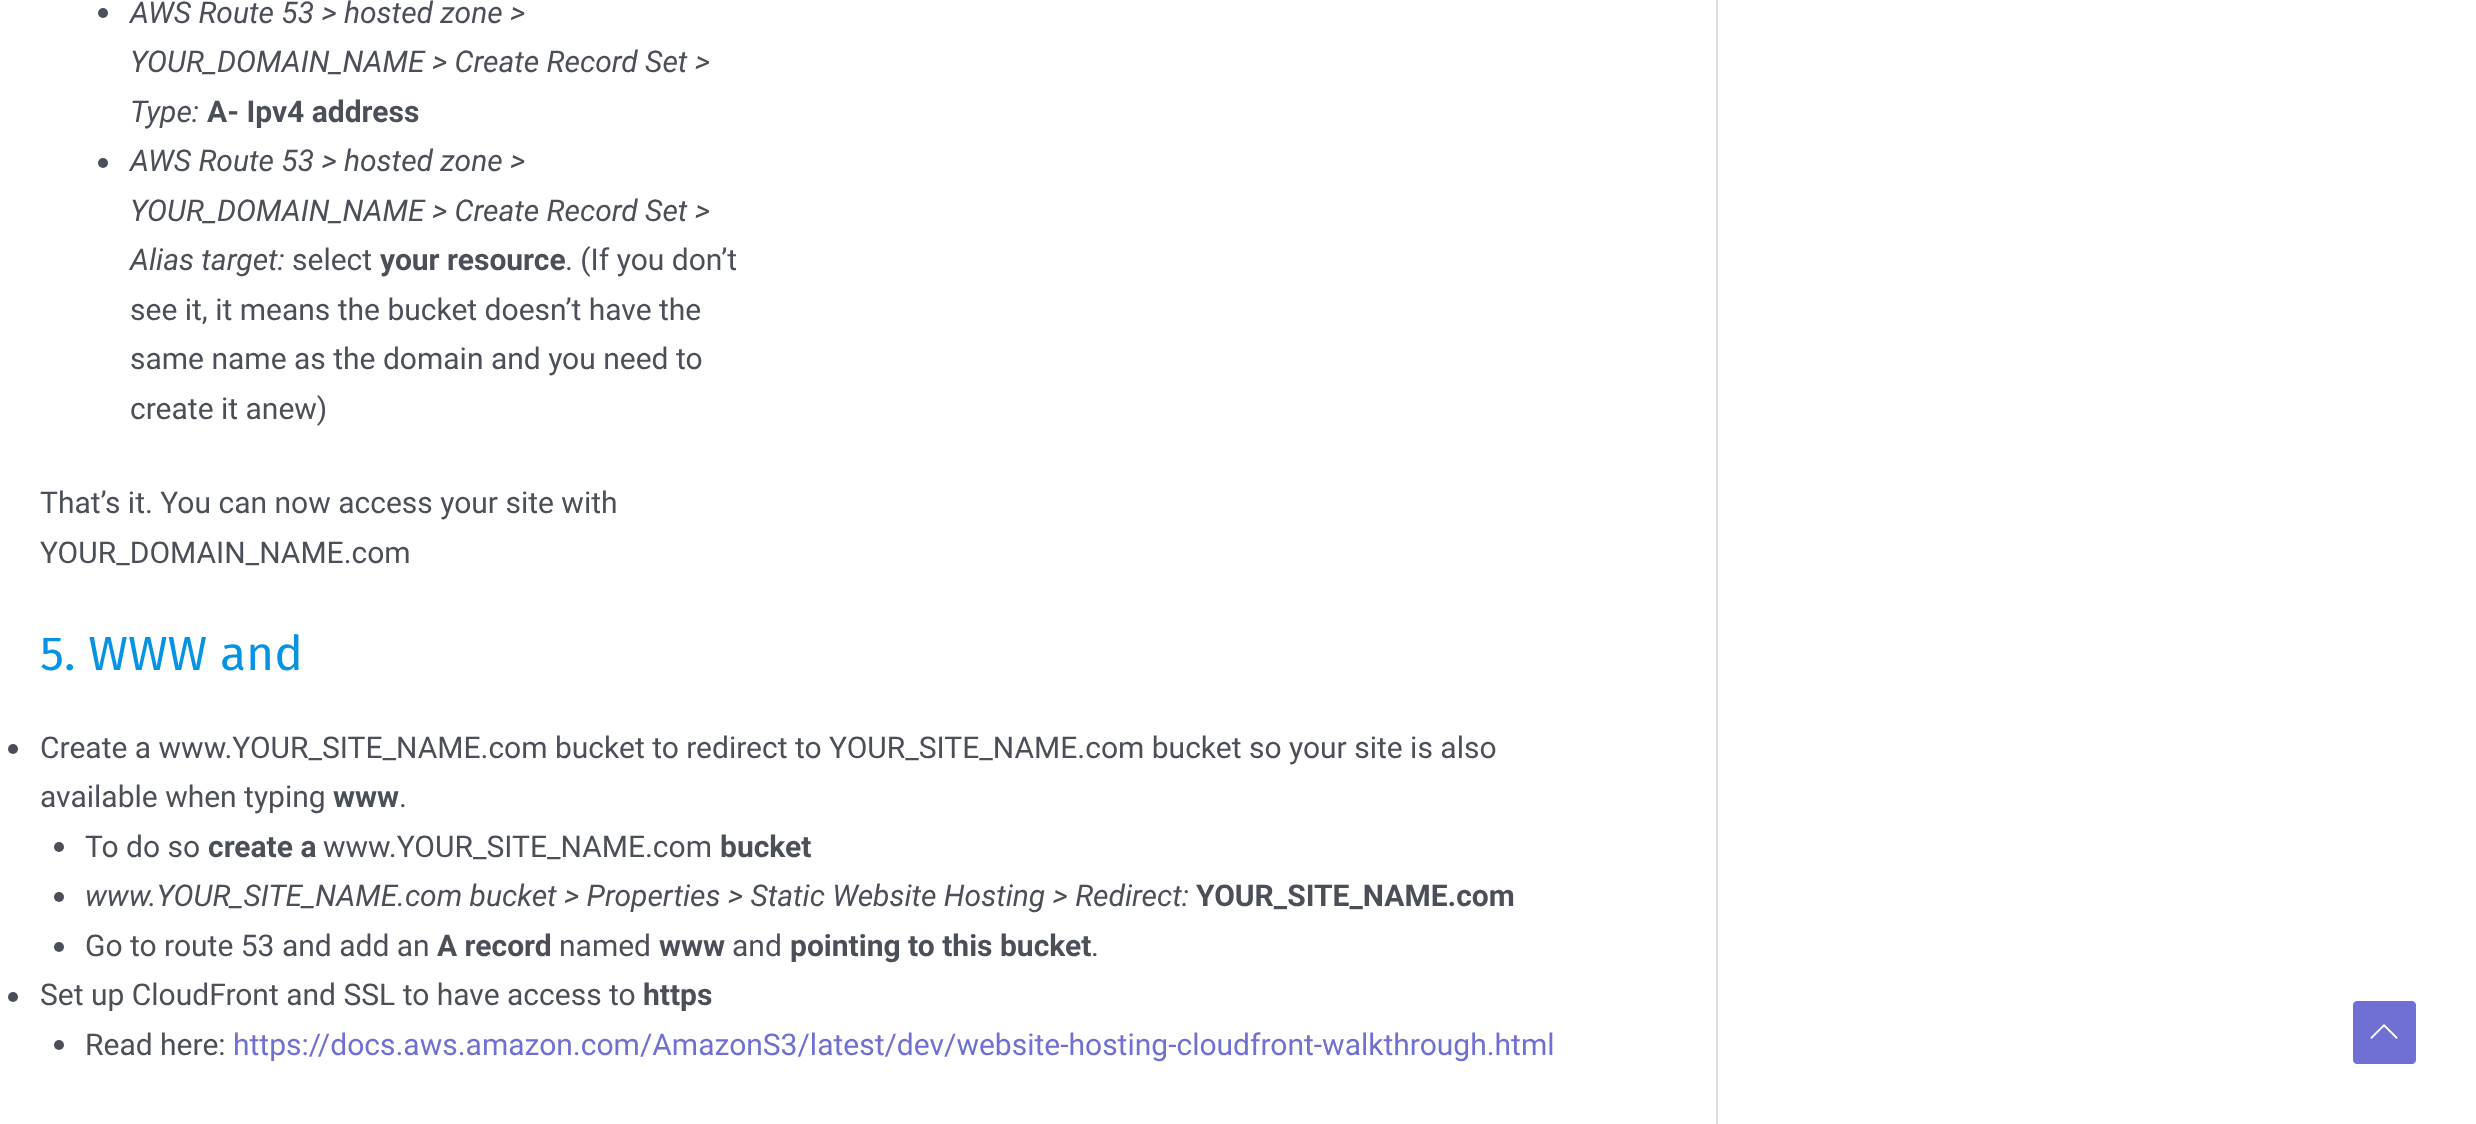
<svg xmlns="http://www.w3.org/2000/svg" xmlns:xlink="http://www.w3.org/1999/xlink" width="2476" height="1124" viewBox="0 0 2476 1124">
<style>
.cls-1{font:italic 30px Roboto;fill:#4b4f58}
.cls-2{font:bold 30px Roboto;fill:#4b4f58}
.cls-3{font:30px Roboto;fill:#4b4f58}
.cls-4{font:48px Fira Sans;fill:#0693e3}
.cls-5{font:30px Roboto;fill:#706fd3}
</style>
<rect width="100%" height="100%" fill="#ffffff"/>
<rect fill="#dddddd" x="1716" y="0" width="2" height="1124"/>
<circle fill="#4b4f58" cx="103" cy="13" r="5"/>
<circle fill="#4b4f58" cx="103" cy="163" r="5"/>
<circle fill="#4b4f58" cx="13" cy="749" r="5"/>
<circle fill="#4b4f58" cx="59" cy="847" r="5"/>
<circle fill="#4b4f58" cx="59" cy="897" r="5"/>
<circle fill="#4b4f58" cx="59" cy="947" r="5"/>
<circle fill="#4b4f58" cx="13" cy="997" r="5"/>
<circle fill="#4b4f58" cx="59" cy="1045" r="5"/>
<path fill="#706fd3" d="M2412 1064H2357C2355 1064 2353 1062 2353 1060V1005C2353 1003 2355 1001 2357 1001H2412C2414 1001 2416 1003 2416 1005V1060C2416 1062 2414 1064 2412 1064Z"/>
<image xlink:href="image0.png" x="2370" y="1024" width="28" height="15"/>
<text class="cls-1"><tspan x="130" y="23">AWS Route 53 &gt; hosted zone &gt;</tspan><tspan x="130" y="72">YOUR_DOMAIN_NAME &gt; Create Record Set &gt;</tspan><tspan x="130" y="122">Type:</tspan></text>
<text class="cls-2" x="207" y="122">A- Ipv4 address</text>
<text class="cls-1"><tspan x="130" y="171">AWS Route 53 &gt; hosted zone &gt;</tspan><tspan x="130" y="221">YOUR_DOMAIN_NAME &gt; Create Record Set &gt;</tspan><tspan x="130" y="270">Alias target:</tspan></text>
<text class="cls-3" x="292" y="270">select</text>
<text class="cls-2" x="380" y="270">your resource</text>
<text class="cls-3" x="565" y="270">. (If you don’t</text>
<text class="cls-3"><tspan x="130" y="320">see it, it means the bucket doesn’t have the</tspan><tspan x="130" y="369">same name as the domain and you need to</tspan><tspan x="130" y="419">create it anew)</tspan></text>
<text class="cls-3"><tspan x="40" y="513">That’s it. You can now access your site with</tspan><tspan x="40" y="563">YOUR_DOMAIN_NAME.com</tspan></text>
<text class="cls-4" x="40" y="670">5. WWW and</text>
<text class="cls-3"><tspan x="40" y="758">Create a www.YOUR_SITE_NAME.com bucket to redirect to YOUR_SITE_NAME.com bucket so your site is also</tspan><tspan x="40" y="807">available when typing</tspan></text>
<text class="cls-2" x="333" y="807">www</text>
<text class="cls-3" x="399" y="807">.</text>
<text class="cls-3" x="85" y="857">To do so</text>
<text class="cls-2" x="208" y="857">create a</text>
<text class="cls-3" x="323" y="857">www.YOUR_SITE_NAME.com</text>
<text class="cls-2" x="720" y="857">bucket</text>
<text class="cls-1" x="85" y="906">www.YOUR_SITE_NAME.com bucket &gt; Properties &gt; Static Website Hosting &gt; Redirect:</text>
<text class="cls-2" x="1196" y="906">YOUR_SITE_NAME.com</text>
<text class="cls-3" x="85" y="956">Go to route 53 and add an</text>
<text class="cls-2" x="437" y="956">A record</text>
<text class="cls-3" x="559" y="956">named</text>
<text class="cls-2" x="659" y="956">www</text>
<text class="cls-3" x="732" y="956">and</text>
<text class="cls-2" x="790" y="956">pointing to this bucket</text>
<text class="cls-3" x="1091" y="956">.</text>
<text class="cls-3" x="40" y="1005">Set up CloudFront and SSL to have access to</text>
<text class="cls-2" x="643" y="1005">https</text>
<text class="cls-3" x="85" y="1055">Read here:</text>
<text class="cls-5" x="233" y="1055">https://docs.aws.amazon.com/AmazonS3/latest/dev/website-hosting-cloudfront-walkthrough.html</text>
</svg>
